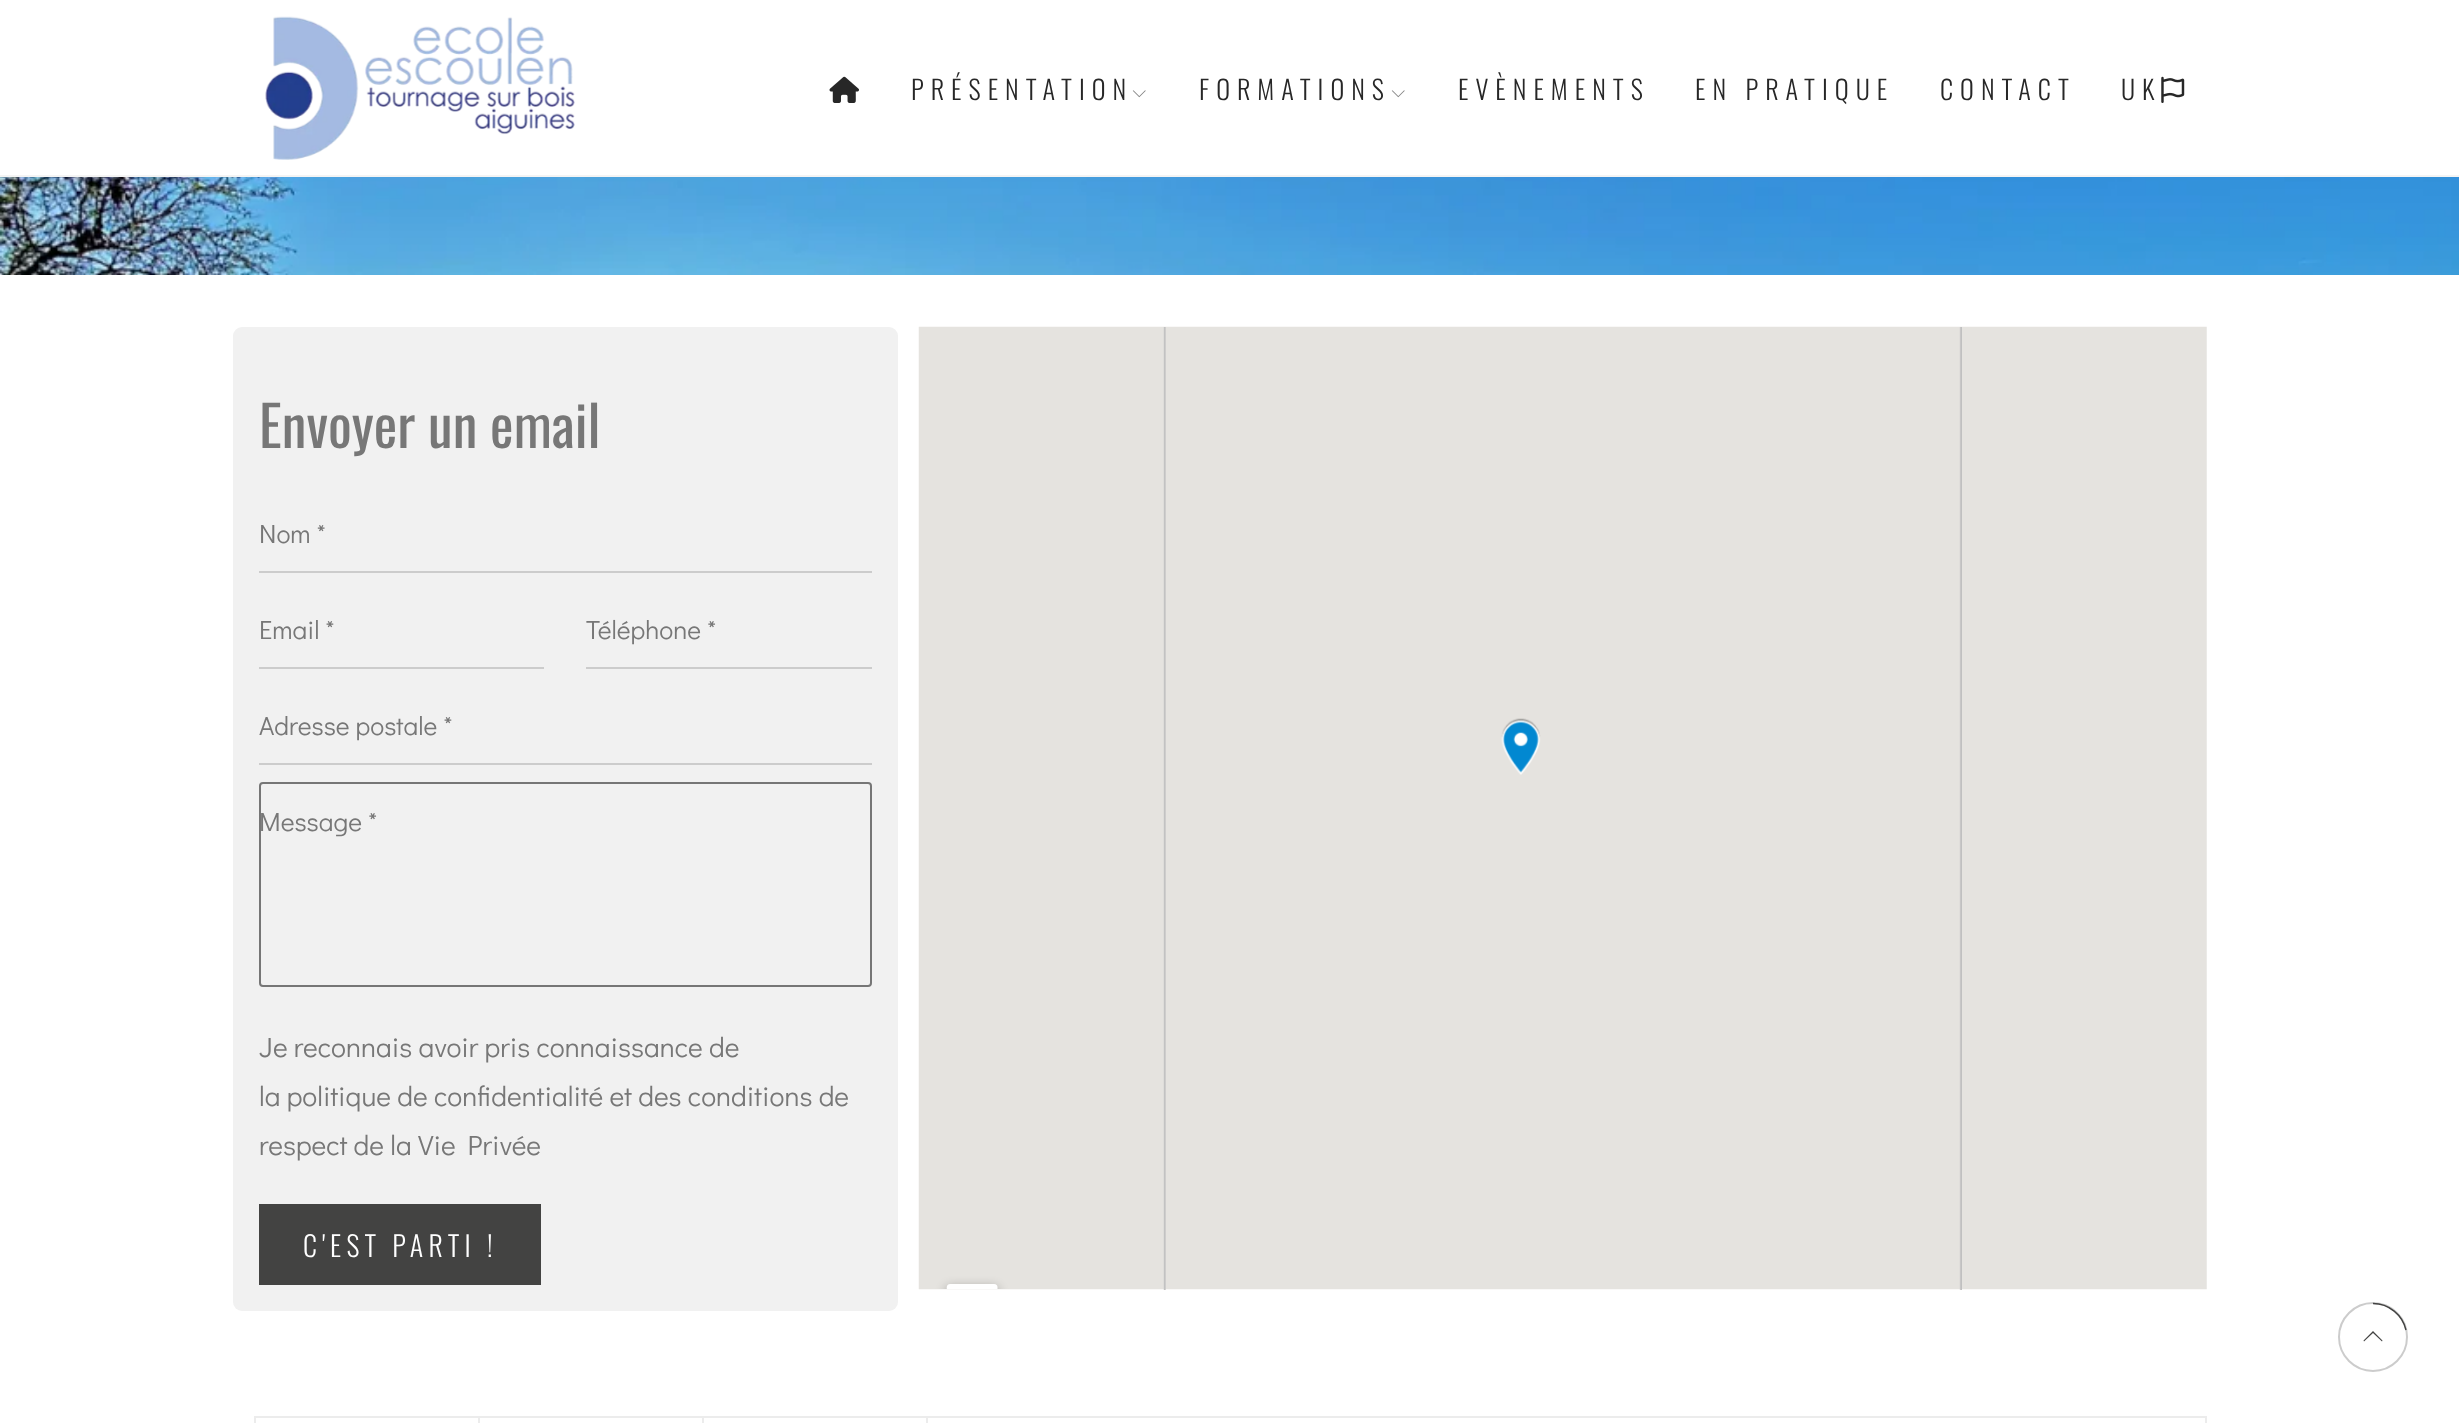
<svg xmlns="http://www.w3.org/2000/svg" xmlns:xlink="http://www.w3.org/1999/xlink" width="2459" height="1423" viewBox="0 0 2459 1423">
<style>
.cls-1{font:300 26.25px Oswald;letter-spacing:7px;fill:#272727}
.cls-2{font:56px Oswald;fill:#777777}
.cls-3{font:26.25px Didact Gothic;fill:#777777}
.cls-4{font:28px Didact Gothic;fill:#777777}
.cls-5{font:300 28px Oswald;letter-spacing:5.25px;fill:#ffffff}
</style>
<rect width="100%" height="100%" fill="#ffffff"/>
<rect fill="#f4f4f4" x="0" y="175" width="2459" height="2"/>
<image xlink:href="image0.png" x="265" y="16" width="310" height="144"/>
<image xlink:href="image1.png" x="829" y="76" width="30" height="27"/>
<image xlink:href="image2.png" x="1132" y="90" width="14" height="8"/>
<image xlink:href="image2.png" x="1391" y="90" width="14" height="8"/>
<image xlink:href="image3.png" x="2161" y="76" width="24" height="27"/>
<image xlink:href="image4.png" x="0" y="177" width="2459" height="98"/>
<rect fill="#f1f1f1" x="233" y="327" width="665" height="984" rx="9"/>
<rect fill="#cccccc" x="259" y="571" width="613" height="2"/>
<rect fill="#cccccc" x="259" y="667" width="285" height="2"/>
<rect fill="#cccccc" x="586" y="667" width="286" height="2"/>
<rect fill="#cccccc" x="259" y="763" width="613" height="2"/>
<rect fill="none" stroke="#767676" stroke-width="2" x="260" y="783" width="611" height="203" rx="3"/>
<rect fill="#434342" x="259" y="1204" width="282" height="81"/>
<image xlink:href="image5.png" x="918" y="326" width="1289" height="964"/>
<rect fill="#ececec" x="254" y="1416" width="1953" height="2"/>
<rect fill="#ececec" x="2205" y="1416" width="2" height="7"/>
<rect fill="#ececec" x="254" y="1416" width="2" height="7"/>
<rect fill="#ececec" x="478" y="1416" width="2" height="7"/>
<rect fill="#ececec" x="702" y="1416" width="2" height="7"/>
<rect fill="#ececec" x="926" y="1416" width="2" height="7"/>
<circle fill="none" stroke="#cccccc" stroke-width="2" cx="2373" cy="1337" r="34"/>
<path fill="none" stroke="#434342" stroke-width="1.4" d="M2373 1303.5C2389 1303.5 2402.5 1315 2406 1330"/>
<path fill="#434342" d="M2382.5 1340.5L2382 1341.5L2373 1333L2364 1341.5L2363.5 1340.5L2373 1331Z"/>
<text class="cls-1" x="911" y="100">PRÉSENTATION</text>
<text class="cls-1" x="1199" y="100">FORMATIONS</text>
<text class="cls-1" x="1458" y="100">EVÈNEMENTS</text>
<text class="cls-1" x="1695" y="100">EN PRATIQUE</text>
<text class="cls-1" x="1940" y="100">CONTACT</text>
<text class="cls-1" x="2121" y="100">UK</text>
<text class="cls-2" x="259" y="448">Envoyer un email</text>
<text class="cls-3" x="259" y="543">Nom *</text>
<text class="cls-3" x="259" y="639">Email *</text>
<text class="cls-3" x="586" y="639">Téléphone *</text>
<text class="cls-3" x="259" y="735">Adresse postale *</text>
<text class="cls-3" x="259" y="831">Message *</text>
<text class="cls-4"><tspan x="259" y="1057">Je reconnais avoir pris connaissance de</tspan><tspan x="259" y="1106">la politique de confidentialité et des conditions de</tspan><tspan x="259" y="1155">respect de la Vie Privée</tspan></text>
<text class="cls-5" x="303" y="1257">C'EST PARTI !</text>
</svg>
